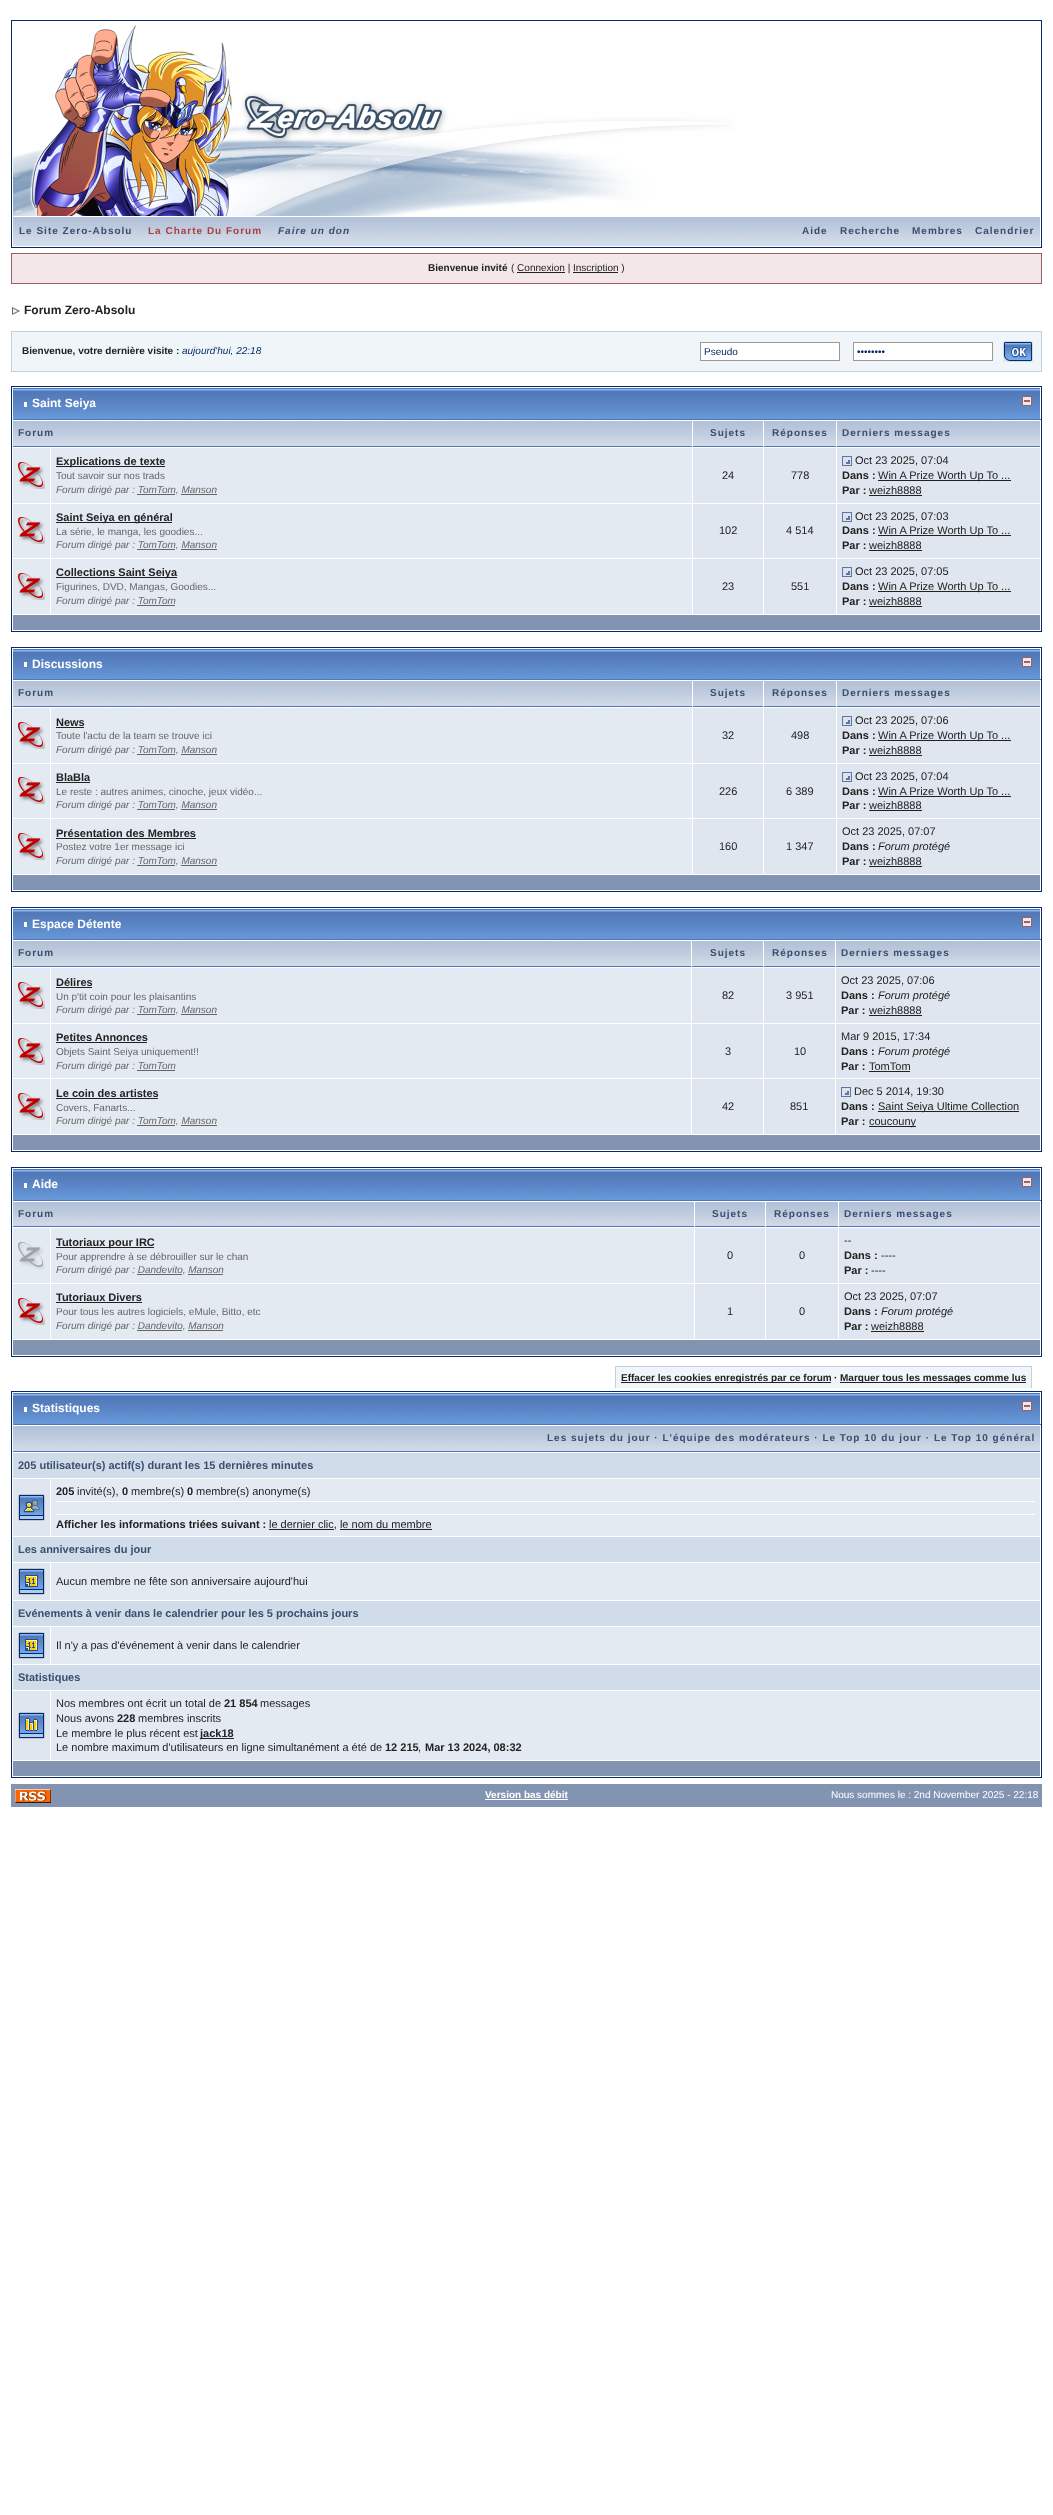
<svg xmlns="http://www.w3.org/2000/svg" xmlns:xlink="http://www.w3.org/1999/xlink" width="1053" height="2515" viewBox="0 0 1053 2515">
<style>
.cls-1{font:bold 10px Liberation Sans;letter-spacing:1px;fill:#3a4f6c}
.cls-2{font:bold 10px Liberation Sans;letter-spacing:1px;fill:#aa4040}
.cls-3{font:italic bold 10px Liberation Sans;letter-spacing:1px;fill:#3a4f6c}
.cls-4{font:bold 10px Liberation Sans;fill:#222222}
.cls-5{font:10px Liberation Sans;fill:#222222}
.cls-6{font:bold 12px Liberation Sans;fill:#222222}
.cls-7{font:italic 10px Liberation Sans;fill:#072a66}
.cls-8{font:10px Liberation Sans;fill:#072a66}
.cls-9{font:bold 12px Liberation Sans;fill:#ffffff}
.cls-10{font:bold 11px Liberation Sans;fill:#222222}
.cls-11{font:10px Liberation Sans;fill:#666666}
.cls-12{font:italic 10px Liberation Sans;fill:#666666}
.cls-13{font:11px Liberation Sans;fill:#222222}
.cls-14{font:italic 11px Liberation Sans;fill:#222222}
.cls-15{font:bold 10px Liberation Sans;fill:#000000}
.cls-16{font:bold 11px Liberation Sans;fill:#3a4f6c}
.cls-17{font:bold 10px Liberation Sans;fill:#ffffff}
.cls-18{font:10px Liberation Sans;fill:#ffffff}
</style>
<rect width="100%" height="100%" fill="#ffffff"/>
<rect fill="none" stroke="#072a66" x="11.5" y="20.5" width="1030" height="227"/>
<image xlink:href="image0.png" x="13" y="25" width="722" height="191"/>
<image xlink:href="image1.png" x="13" y="217" width="1027" height="29"/>
<rect fill="#f4e7ea" stroke="#986265" x="11.5" y="253.5" width="1030" height="30"/>
<rect fill="#222222" x="573" y="272" width="45" height="1"/>
<rect fill="#222222" x="517" y="272" width="48" height="1"/>
<image xlink:href="image2.png" x="12" y="307" width="8" height="8"/>
<rect fill="#f0f5fa" stroke="#c2cfdf" x="11.5" y="331.5" width="1030" height="40"/>
<rect fill="#ffffff" stroke="#999999" x="700.5" y="342.5" width="139" height="18"/>
<rect fill="#ffffff" stroke="#999999" x="853.5" y="342.5" width="139" height="18"/>
<image xlink:href="image3.png" x="1003" y="341" width="30" height="21"/>
<rect fill="none" stroke="#072a66" x="11.5" y="386.5" width="1030" height="245"/>
<image xlink:href="image4.png" x="13" y="388" width="1027" height="31"/>
<rect fill="#5176b5" x="12" y="419" width="1029" height="1"/>
<rect fill="#ffffff" x="12" y="419" width="1" height="1"/>
<rect fill="#ffffff" x="24" y="402" width="3" height="5"/>
<image xlink:href="image5.png" x="1022" y="396" width="10" height="10"/>
<image xlink:href="image6.png" x="13" y="421" width="679" height="25"/>
<rect fill="#5176b5" x="13" y="446" width="679" height="1"/>
<image xlink:href="image7.png" x="693" y="421" width="70" height="25"/>
<rect fill="#5176b5" x="693" y="446" width="70" height="1"/>
<image xlink:href="image8.png" x="764" y="421" width="72" height="25"/>
<rect fill="#5176b5" x="764" y="446" width="72" height="1"/>
<image xlink:href="image9.png" x="837" y="421" width="203" height="25"/>
<rect fill="#5176b5" x="837" y="446" width="203" height="1"/>
<rect fill="#e4eaf2" x="13" y="448" width="37" height="55"/>
<image xlink:href="image10.png" x="18" y="462" width="27" height="27"/>
<rect fill="#e4eaf2" x="51" y="448" width="641" height="55"/>
<rect fill="#222222" x="56" y="466" width="109" height="1"/>
<rect fill="#666666" x="137" y="494" width="38" height="1"/>
<rect fill="#666666" x="181" y="494" width="36" height="1"/>
<rect fill="#dfe6ef" x="693" y="448" width="70" height="55"/>
<rect fill="#dfe6ef" x="764" y="448" width="72" height="55"/>
<rect fill="#dfe6ef" x="837" y="448" width="203" height="55"/>
<image xlink:href="image11.png" x="842" y="456" width="10" height="10"/>
<rect fill="#222222" x="878" y="480" width="133" height="1"/>
<rect fill="#222222" x="869" y="495" width="53" height="1"/>
<rect fill="#e4eaf2" x="13" y="504" width="37" height="54"/>
<image xlink:href="image10.png" x="18" y="517" width="27" height="27"/>
<rect fill="#e4eaf2" x="51" y="504" width="641" height="54"/>
<rect fill="#222222" x="56" y="522" width="116" height="1"/>
<rect fill="#666666" x="137" y="549" width="38" height="1"/>
<rect fill="#666666" x="181" y="549" width="36" height="1"/>
<rect fill="#dfe6ef" x="693" y="504" width="70" height="54"/>
<rect fill="#dfe6ef" x="764" y="504" width="72" height="54"/>
<rect fill="#dfe6ef" x="837" y="504" width="203" height="54"/>
<image xlink:href="image11.png" x="842" y="512" width="10" height="10"/>
<rect fill="#222222" x="878" y="535" width="133" height="1"/>
<rect fill="#222222" x="869" y="550" width="53" height="1"/>
<rect fill="#e4eaf2" x="13" y="559" width="37" height="55"/>
<image xlink:href="image10.png" x="18" y="573" width="27" height="27"/>
<rect fill="#e4eaf2" x="51" y="559" width="641" height="55"/>
<rect fill="#222222" x="56" y="577" width="121" height="1"/>
<rect fill="#666666" x="137" y="605" width="38" height="1"/>
<rect fill="#dfe6ef" x="693" y="559" width="70" height="55"/>
<rect fill="#dfe6ef" x="764" y="559" width="72" height="55"/>
<rect fill="#dfe6ef" x="837" y="559" width="203" height="55"/>
<image xlink:href="image11.png" x="842" y="567" width="10" height="10"/>
<rect fill="#222222" x="878" y="591" width="133" height="1"/>
<rect fill="#222222" x="869" y="606" width="53" height="1"/>
<rect fill="#8394b2" x="13" y="615" width="1027" height="15"/>
<rect fill="none" stroke="#072a66" x="11.5" y="647.5" width="1030" height="244"/>
<image xlink:href="image12.png" x="13" y="649" width="1027" height="30"/>
<rect fill="#5176b5" x="12" y="679" width="1029" height="1"/>
<rect fill="#ffffff" x="12" y="679" width="1" height="1"/>
<rect fill="#ffffff" x="24" y="662" width="3" height="5"/>
<image xlink:href="image5.png" x="1022" y="657" width="10" height="10"/>
<image xlink:href="image6.png" x="13" y="681" width="679" height="25"/>
<rect fill="#5176b5" x="13" y="706" width="679" height="1"/>
<image xlink:href="image7.png" x="693" y="681" width="70" height="25"/>
<rect fill="#5176b5" x="693" y="706" width="70" height="1"/>
<image xlink:href="image8.png" x="764" y="681" width="72" height="25"/>
<rect fill="#5176b5" x="764" y="706" width="72" height="1"/>
<image xlink:href="image9.png" x="837" y="681" width="203" height="25"/>
<rect fill="#5176b5" x="837" y="706" width="203" height="1"/>
<rect fill="#e4eaf2" x="13" y="708" width="37" height="55"/>
<image xlink:href="image10.png" x="18" y="722" width="27" height="27"/>
<rect fill="#e4eaf2" x="51" y="708" width="641" height="55"/>
<rect fill="#222222" x="56" y="727" width="28" height="1"/>
<rect fill="#666666" x="137" y="754" width="38" height="1"/>
<rect fill="#666666" x="181" y="754" width="36" height="1"/>
<rect fill="#dfe6ef" x="693" y="708" width="70" height="55"/>
<rect fill="#dfe6ef" x="764" y="708" width="72" height="55"/>
<rect fill="#dfe6ef" x="837" y="708" width="203" height="55"/>
<image xlink:href="image11.png" x="842" y="716" width="10" height="10"/>
<rect fill="#222222" x="878" y="740" width="133" height="1"/>
<rect fill="#222222" x="869" y="755" width="53" height="1"/>
<rect fill="#e4eaf2" x="13" y="764" width="37" height="54"/>
<image xlink:href="image10.png" x="18" y="777" width="27" height="27"/>
<rect fill="#e4eaf2" x="51" y="764" width="641" height="54"/>
<rect fill="#222222" x="56" y="782" width="34" height="1"/>
<rect fill="#666666" x="137" y="809" width="38" height="1"/>
<rect fill="#666666" x="181" y="809" width="36" height="1"/>
<rect fill="#dfe6ef" x="693" y="764" width="70" height="54"/>
<rect fill="#dfe6ef" x="764" y="764" width="72" height="54"/>
<rect fill="#dfe6ef" x="837" y="764" width="203" height="54"/>
<image xlink:href="image11.png" x="842" y="772" width="10" height="10"/>
<rect fill="#222222" x="878" y="796" width="133" height="1"/>
<rect fill="#222222" x="869" y="810" width="53" height="1"/>
<rect fill="#e4eaf2" x="13" y="819" width="37" height="55"/>
<image xlink:href="image10.png" x="18" y="833" width="27" height="27"/>
<rect fill="#e4eaf2" x="51" y="819" width="641" height="55"/>
<rect fill="#222222" x="56" y="838" width="140" height="1"/>
<rect fill="#666666" x="137" y="865" width="38" height="1"/>
<rect fill="#666666" x="181" y="865" width="36" height="1"/>
<rect fill="#dfe6ef" x="693" y="819" width="70" height="55"/>
<rect fill="#dfe6ef" x="764" y="819" width="72" height="55"/>
<rect fill="#dfe6ef" x="837" y="819" width="203" height="55"/>
<rect fill="#222222" x="869" y="866" width="53" height="1"/>
<rect fill="#8394b2" x="13" y="875" width="1027" height="15"/>
<rect fill="none" stroke="#072a66" x="11.5" y="907.5" width="1030" height="244"/>
<image xlink:href="image12.png" x="13" y="909" width="1027" height="30"/>
<rect fill="#5176b5" x="12" y="939" width="1029" height="1"/>
<rect fill="#ffffff" x="12" y="939" width="1" height="1"/>
<rect fill="#ffffff" x="24" y="922" width="3" height="5"/>
<image xlink:href="image5.png" x="1022" y="917" width="10" height="10"/>
<image xlink:href="image13.png" x="13" y="941" width="678" height="25"/>
<rect fill="#5176b5" x="13" y="966" width="678" height="1"/>
<image xlink:href="image14.png" x="692" y="941" width="71" height="25"/>
<rect fill="#5176b5" x="692" y="966" width="71" height="1"/>
<image xlink:href="image14.png" x="764" y="941" width="71" height="25"/>
<rect fill="#5176b5" x="764" y="966" width="71" height="1"/>
<image xlink:href="image15.png" x="836" y="941" width="204" height="25"/>
<rect fill="#5176b5" x="836" y="966" width="204" height="1"/>
<rect fill="#e4eaf2" x="13" y="968" width="37" height="55"/>
<image xlink:href="image10.png" x="18" y="982" width="27" height="27"/>
<rect fill="#e4eaf2" x="51" y="968" width="640" height="55"/>
<rect fill="#222222" x="56" y="987" width="36" height="1"/>
<rect fill="#666666" x="137" y="1014" width="38" height="1"/>
<rect fill="#666666" x="181" y="1014" width="36" height="1"/>
<rect fill="#dfe6ef" x="692" y="968" width="71" height="55"/>
<rect fill="#dfe6ef" x="764" y="968" width="71" height="55"/>
<rect fill="#dfe6ef" x="836" y="968" width="204" height="55"/>
<rect fill="#222222" x="869" y="1015" width="53" height="1"/>
<rect fill="#e4eaf2" x="13" y="1024" width="37" height="54"/>
<image xlink:href="image10.png" x="18" y="1038" width="27" height="27"/>
<rect fill="#e4eaf2" x="51" y="1024" width="640" height="54"/>
<rect fill="#222222" x="56" y="1042" width="91" height="1"/>
<rect fill="#666666" x="137" y="1070" width="38" height="1"/>
<rect fill="#dfe6ef" x="692" y="1024" width="71" height="54"/>
<rect fill="#dfe6ef" x="764" y="1024" width="71" height="54"/>
<rect fill="#dfe6ef" x="836" y="1024" width="204" height="54"/>
<rect fill="#222222" x="869" y="1071" width="41" height="1"/>
<rect fill="#e4eaf2" x="13" y="1079" width="37" height="55"/>
<image xlink:href="image10.png" x="18" y="1093" width="27" height="27"/>
<rect fill="#e4eaf2" x="51" y="1079" width="640" height="55"/>
<rect fill="#222222" x="56" y="1098" width="102" height="1"/>
<rect fill="#666666" x="137" y="1125" width="38" height="1"/>
<rect fill="#666666" x="181" y="1125" width="36" height="1"/>
<rect fill="#dfe6ef" x="692" y="1079" width="71" height="55"/>
<rect fill="#dfe6ef" x="764" y="1079" width="71" height="55"/>
<rect fill="#dfe6ef" x="836" y="1079" width="204" height="55"/>
<image xlink:href="image11.png" x="841" y="1087" width="10" height="10"/>
<rect fill="#222222" x="878" y="1111" width="141" height="1"/>
<rect fill="#222222" x="869" y="1126" width="47" height="1"/>
<rect fill="#8394b2" x="13" y="1135" width="1027" height="15"/>
<rect fill="none" stroke="#072a66" x="11.5" y="1167.5" width="1030" height="189"/>
<image xlink:href="image4.png" x="13" y="1169" width="1027" height="31"/>
<rect fill="#5176b5" x="12" y="1200" width="1029" height="1"/>
<rect fill="#ffffff" x="12" y="1200" width="1" height="1"/>
<rect fill="#ffffff" x="24" y="1183" width="3" height="5"/>
<image xlink:href="image5.png" x="1022" y="1177" width="10" height="10"/>
<image xlink:href="image16.png" x="13" y="1202" width="681" height="24"/>
<rect fill="#5176b5" x="13" y="1226" width="681" height="1"/>
<image xlink:href="image17.png" x="695" y="1202" width="70" height="24"/>
<rect fill="#5176b5" x="695" y="1226" width="70" height="1"/>
<image xlink:href="image18.png" x="766" y="1202" width="72" height="24"/>
<rect fill="#5176b5" x="766" y="1226" width="72" height="1"/>
<image xlink:href="image19.png" x="839" y="1202" width="201" height="24"/>
<rect fill="#5176b5" x="839" y="1226" width="201" height="1"/>
<rect fill="#e4eaf2" x="13" y="1228" width="37" height="55"/>
<image xlink:href="image20.png" x="18" y="1242" width="27" height="27"/>
<rect fill="#e4eaf2" x="51" y="1228" width="643" height="55"/>
<rect fill="#222222" x="56" y="1247" width="98" height="1"/>
<rect fill="#666666" x="137" y="1274" width="45" height="1"/>
<rect fill="#666666" x="188" y="1274" width="35" height="1"/>
<rect fill="#dfe6ef" x="695" y="1228" width="70" height="55"/>
<rect fill="#dfe6ef" x="766" y="1228" width="72" height="55"/>
<rect fill="#dfe6ef" x="839" y="1228" width="201" height="55"/>
<rect fill="#e4eaf2" x="13" y="1284" width="37" height="55"/>
<image xlink:href="image10.png" x="18" y="1298" width="27" height="27"/>
<rect fill="#e4eaf2" x="51" y="1284" width="643" height="55"/>
<rect fill="#222222" x="56" y="1302" width="86" height="1"/>
<rect fill="#666666" x="137" y="1330" width="45" height="1"/>
<rect fill="#666666" x="188" y="1330" width="35" height="1"/>
<rect fill="#dfe6ef" x="695" y="1284" width="70" height="55"/>
<rect fill="#dfe6ef" x="766" y="1284" width="72" height="55"/>
<rect fill="#dfe6ef" x="839" y="1284" width="201" height="55"/>
<rect fill="#222222" x="871" y="1331" width="53" height="1"/>
<rect fill="#8394b2" x="13" y="1340" width="1027" height="15"/>
<rect fill="#c2cfdf" x="615" y="1366" width="417" height="1"/>
<rect fill="#c2cfdf" x="615" y="1366" width="1" height="22"/>
<rect fill="#f0f5fa" x="616" y="1367" width="415" height="21"/>
<rect fill="#222222" x="621" y="1382" width="210" height="1"/>
<rect fill="#c2cfdf" x="1031" y="1366" width="1" height="22"/>
<rect fill="#222222" x="840" y="1382" width="186" height="1"/>
<rect fill="none" stroke="#072a66" x="11.5" y="1391.5" width="1030" height="386"/>
<image xlink:href="image4.png" x="13" y="1393" width="1027" height="31"/>
<rect fill="#5176b5" x="12" y="1424" width="1029" height="1"/>
<rect fill="#ffffff" x="12" y="1424" width="1" height="1"/>
<rect fill="#ffffff" x="24" y="1407" width="3" height="5"/>
<image xlink:href="image5.png" x="1022" y="1401" width="10" height="10"/>
<image xlink:href="image21.png" x="13" y="1426" width="1027" height="25"/>
<rect fill="#5176b5" x="13" y="1451" width="1027" height="1"/>
<rect fill="#d1dceb" x="13" y="1453" width="1027" height="25"/>
<rect fill="#dfe6ef" x="13" y="1479" width="37" height="57"/>
<image xlink:href="image22.png" x="18" y="1494" width="27" height="27"/>
<rect fill="#e4eaf2" x="51" y="1479" width="989" height="57"/>
<rect fill="#ffffff" x="56" y="1501" width="979" height="1"/>
<rect fill="#ffffff" x="56" y="1514" width="979" height="1"/>
<rect fill="#222222" x="269" y="1529" width="65" height="1"/>
<rect fill="#222222" x="340" y="1529" width="92" height="1"/>
<rect fill="#d1dceb" x="13" y="1537" width="1027" height="25"/>
<rect fill="#dfe6ef" x="13" y="1563" width="37" height="37"/>
<image xlink:href="image23.png" x="18" y="1568" width="27" height="27"/>
<rect fill="#e4eaf2" x="51" y="1563" width="989" height="37"/>
<rect fill="#d1dceb" x="13" y="1601" width="1027" height="25"/>
<rect fill="#dfe6ef" x="13" y="1627" width="37" height="37"/>
<image xlink:href="image23.png" x="18" y="1632" width="27" height="27"/>
<rect fill="#e4eaf2" x="51" y="1627" width="989" height="37"/>
<rect fill="#d1dceb" x="13" y="1665" width="1027" height="25"/>
<rect fill="#dfe6ef" x="13" y="1691" width="37" height="69"/>
<image xlink:href="image24.png" x="18" y="1712" width="27" height="27"/>
<rect fill="#e4eaf2" x="51" y="1691" width="989" height="69"/>
<rect fill="#222222" x="200" y="1738" width="34" height="1"/>
<rect fill="#8394b2" x="13" y="1761" width="1027" height="15"/>
<rect fill="#8394b2" x="11" y="1784" width="1031" height="23"/>
<image xlink:href="image25.png" x="15" y="1789" width="36" height="14"/>
<rect fill="#ffffff" x="485" y="1799" width="83" height="1"/>
<text class="cls-1" x="19" y="234">Le Site Zero-Absolu</text>
<text class="cls-2" x="148" y="234">La Charte Du Forum</text>
<text class="cls-3" x="278" y="234">Faire un don</text>
<text class="cls-1" x="802" y="234">Aide</text>
<text class="cls-1" x="840" y="234">Recherche</text>
<text class="cls-1" x="912" y="234">Membres</text>
<text class="cls-1" x="975" y="234">Calendrier</text>
<text class="cls-4" x="428" y="271">Bienvenue invité</text>
<text class="cls-5" x="511" y="271">( Connexion |</text>
<text class="cls-5" x="573" y="271">Inscription )</text>
<text class="cls-6" x="24" y="314">Forum Zero-Absolu</text>
<text class="cls-4" x="22" y="354">Bienvenue, votre dernière visite :</text>
<text class="cls-7" x="182" y="354">aujourd'hui, 22:18</text>
<text class="cls-8" x="704" y="355">Pseudo</text>
<text class="cls-8" x="857" y="355">••••••••</text>
<text class="cls-9" x="32" y="407">Saint Seiya</text>
<text class="cls-1" x="18" y="436">Forum</text>
<text class="cls-1" x="710" y="436">Sujets</text>
<text class="cls-1" x="772" y="436">Réponses</text>
<text class="cls-1" x="842" y="436">Derniers messages</text>
<text class="cls-10" x="56" y="465">Explications de texte</text>
<text class="cls-11" x="56" y="479">Tout savoir sur nos trads</text>
<text class="cls-12" x="56" y="493">Forum dirigé par : TomTom, Manson</text>
<text class="cls-13" x="722" y="479">24</text>
<text class="cls-13" x="791" y="479">778</text>
<text class="cls-13" x="855" y="464">Oct 23 2025, 07:04</text>
<text class="cls-10" x="842" y="479">Dans :</text>
<text class="cls-13" x="878" y="479">Win A Prize Worth Up To ...</text>
<text class="cls-10" x="842" y="494">Par :</text>
<text class="cls-13" x="869" y="494">weizh8888</text>
<text class="cls-10" x="56" y="521">Saint Seiya en général</text>
<text class="cls-11" x="56" y="535">La série, le manga, les goodies...</text>
<text class="cls-12" x="56" y="548">Forum dirigé par : TomTom, Manson</text>
<text class="cls-13" x="719" y="534">102</text>
<text class="cls-13" x="786" y="534">4 514</text>
<text class="cls-13" x="855" y="520">Oct 23 2025, 07:03</text>
<text class="cls-10" x="842" y="534">Dans :</text>
<text class="cls-13" x="878" y="534">Win A Prize Worth Up To ...</text>
<text class="cls-10" x="842" y="549">Par :</text>
<text class="cls-13" x="869" y="549">weizh8888</text>
<text class="cls-10" x="56" y="576">Collections Saint Seiya</text>
<text class="cls-11" x="56" y="590">Figurines, DVD, Mangas, Goodies...</text>
<text class="cls-12" x="56" y="604">Forum dirigé par : TomTom</text>
<text class="cls-13" x="722" y="590">23</text>
<text class="cls-13" x="791" y="590">551</text>
<text class="cls-13" x="855" y="575">Oct 23 2025, 07:05</text>
<text class="cls-10" x="842" y="590">Dans :</text>
<text class="cls-13" x="878" y="590">Win A Prize Worth Up To ...</text>
<text class="cls-10" x="842" y="605">Par :</text>
<text class="cls-13" x="869" y="605">weizh8888</text>
<text class="cls-9" x="32" y="668">Discussions</text>
<text class="cls-1" x="18" y="696">Forum</text>
<text class="cls-1" x="710" y="696">Sujets</text>
<text class="cls-1" x="772" y="696">Réponses</text>
<text class="cls-1" x="842" y="696">Derniers messages</text>
<text class="cls-10" x="56" y="726">News</text>
<text class="cls-11" x="56" y="739">Toute l'actu de la team se trouve ici</text>
<text class="cls-12" x="56" y="753">Forum dirigé par : TomTom, Manson</text>
<text class="cls-13" x="722" y="739">32</text>
<text class="cls-13" x="791" y="739">498</text>
<text class="cls-13" x="855" y="724">Oct 23 2025, 07:06</text>
<text class="cls-10" x="842" y="739">Dans :</text>
<text class="cls-13" x="878" y="739">Win A Prize Worth Up To ...</text>
<text class="cls-10" x="842" y="754">Par :</text>
<text class="cls-13" x="869" y="754">weizh8888</text>
<text class="cls-10" x="56" y="781">BlaBla</text>
<text class="cls-11" x="56" y="795">Le reste : autres animes, cinoche, jeux vidéo...</text>
<text class="cls-12" x="56" y="808">Forum dirigé par : TomTom, Manson</text>
<text class="cls-13" x="719" y="795">226</text>
<text class="cls-13" x="786" y="795">6 389</text>
<text class="cls-13" x="855" y="780">Oct 23 2025, 07:04</text>
<text class="cls-10" x="842" y="795">Dans :</text>
<text class="cls-13" x="878" y="795">Win A Prize Worth Up To ...</text>
<text class="cls-10" x="842" y="809">Par :</text>
<text class="cls-13" x="869" y="809">weizh8888</text>
<text class="cls-10" x="56" y="837">Présentation des Membres</text>
<text class="cls-11" x="56" y="850">Postez votre 1er message ici</text>
<text class="cls-12" x="56" y="864">Forum dirigé par : TomTom, Manson</text>
<text class="cls-13" x="719" y="850">160</text>
<text class="cls-13" x="786" y="850">1 347</text>
<text class="cls-13" x="842" y="835">Oct 23 2025, 07:07</text>
<text class="cls-10" x="842" y="850">Dans :</text>
<text class="cls-14" x="878" y="850">Forum protégé</text>
<text class="cls-10" x="842" y="865">Par :</text>
<text class="cls-13" x="869" y="865">weizh8888</text>
<text class="cls-9" x="32" y="928">Espace Détente</text>
<text class="cls-1" x="18" y="956">Forum</text>
<text class="cls-1" x="710" y="956">Sujets</text>
<text class="cls-1" x="772" y="956">Réponses</text>
<text class="cls-1" x="841" y="956">Derniers messages</text>
<text class="cls-10" x="56" y="986">Délires</text>
<text class="cls-11" x="56" y="1000">Un p'tit coin pour les plaisantins</text>
<text class="cls-12" x="56" y="1013">Forum dirigé par : TomTom, Manson</text>
<text class="cls-13" x="722" y="999">82</text>
<text class="cls-13" x="786" y="999">3 951</text>
<text class="cls-13" x="841" y="984">Oct 23 2025, 07:06</text>
<text class="cls-10" x="841" y="999">Dans :</text>
<text class="cls-14" x="878" y="999">Forum protégé</text>
<text class="cls-10" x="841" y="1014">Par :</text>
<text class="cls-13" x="869" y="1014">weizh8888</text>
<text class="cls-10" x="56" y="1041">Petites Annonces</text>
<text class="cls-11" x="56" y="1055">Objets Saint Seiya uniquement!!</text>
<text class="cls-12" x="56" y="1069">Forum dirigé par : TomTom</text>
<text class="cls-13" x="725" y="1055">3</text>
<text class="cls-13" x="794" y="1055">10</text>
<text class="cls-13" x="841" y="1040">Mar 9 2015, 17:34</text>
<text class="cls-10" x="841" y="1055">Dans :</text>
<text class="cls-14" x="878" y="1055">Forum protégé</text>
<text class="cls-10" x="841" y="1070">Par :</text>
<text class="cls-13" x="869" y="1070">TomTom</text>
<text class="cls-10" x="56" y="1097">Le coin des artistes</text>
<text class="cls-11" x="56" y="1111">Covers, Fanarts...</text>
<text class="cls-12" x="56" y="1124">Forum dirigé par : TomTom, Manson</text>
<text class="cls-13" x="722" y="1110">42</text>
<text class="cls-13" x="790" y="1110">851</text>
<text class="cls-13" x="854" y="1095">Dec 5 2014, 19:30</text>
<text class="cls-10" x="841" y="1110">Dans :</text>
<text class="cls-13" x="878" y="1110">Saint Seiya Ultime Collection</text>
<text class="cls-10" x="841" y="1125">Par :</text>
<text class="cls-13" x="869" y="1125">coucouny</text>
<text class="cls-9" x="32" y="1188">Aide</text>
<text class="cls-1" x="18" y="1217">Forum</text>
<text class="cls-1" x="712" y="1217">Sujets</text>
<text class="cls-1" x="774" y="1217">Réponses</text>
<text class="cls-1" x="844" y="1217">Derniers messages</text>
<text class="cls-10" x="56" y="1246">Tutoriaux pour IRC</text>
<text class="cls-11" x="56" y="1260">Pour apprendre à se débrouiller sur le chan</text>
<text class="cls-12" x="56" y="1273">Forum dirigé par : Dandevito, Manson</text>
<text class="cls-13" x="727" y="1259">0</text>
<text class="cls-13" x="799" y="1259">0</text>
<text class="cls-13" x="844" y="1244">--</text>
<text class="cls-10" x="844" y="1259">Dans :</text>
<text class="cls-13" x="881" y="1259">----</text>
<text class="cls-10" x="844" y="1274">Par :</text>
<text class="cls-13" x="871" y="1274">----</text>
<text class="cls-10" x="56" y="1301">Tutoriaux Divers</text>
<text class="cls-11" x="56" y="1315">Pour tous les autres logiciels, eMule, Bitto, etc</text>
<text class="cls-12" x="56" y="1329">Forum dirigé par : Dandevito, Manson</text>
<text class="cls-13" x="727" y="1315">1</text>
<text class="cls-13" x="799" y="1315">0</text>
<text class="cls-13" x="844" y="1300">Oct 23 2025, 07:07</text>
<text class="cls-10" x="844" y="1315">Dans :</text>
<text class="cls-14" x="881" y="1315">Forum protégé</text>
<text class="cls-10" x="844" y="1330">Par :</text>
<text class="cls-13" x="871" y="1330">weizh8888</text>
<text class="cls-4" x="621" y="1381">Effacer les cookies enregistrés par ce forum</text>
<text class="cls-15" x="834" y="1381">·</text>
<text class="cls-4" x="840" y="1381">Marquer tous les messages comme lus</text>
<text class="cls-9" x="32" y="1412">Statistiques</text>
<text class="cls-1" x="547" y="1441">Les sujets du jour · L'équipe des modérateurs · Le Top 10 du jour · Le Top 10 général</text>
<text class="cls-16" x="18" y="1469">205 utilisateur(s) actif(s) durant les 15 dernières minutes</text>
<text class="cls-10" x="56" y="1495">205</text>
<text class="cls-13" x="77" y="1495">invité(s),</text>
<text class="cls-10" x="122" y="1495">0</text>
<text class="cls-13" x="131" y="1495">membre(s)</text>
<text class="cls-10" x="187" y="1495">0</text>
<text class="cls-13" x="196" y="1495">membre(s) anonyme(s)</text>
<text class="cls-10" x="56" y="1528">Afficher les informations triées suivant :</text>
<text class="cls-13" x="269" y="1528">le dernier clic, le nom du membre</text>
<text class="cls-16" x="18" y="1553">Les anniversaires du jour</text>
<text class="cls-13" x="56" y="1585">Aucun membre ne fête son anniversaire aujourd'hui</text>
<text class="cls-16" x="18" y="1617">Evénements à venir dans le calendrier pour les 5 prochains jours</text>
<text class="cls-13" x="56" y="1649">Il n'y a pas d'événement à venir dans le calendrier</text>
<text class="cls-16" x="18" y="1681">Statistiques</text>
<text class="cls-13" x="56" y="1707">Nos membres ont écrit un total de</text>
<text class="cls-10" x="224" y="1707">21 854</text>
<text class="cls-13" x="260" y="1707">messages</text>
<text class="cls-13" x="56" y="1722">Nous avons</text>
<text class="cls-10" x="117" y="1722">228</text>
<text class="cls-13" x="138" y="1722">membres inscrits</text>
<text class="cls-13" x="56" y="1737">Le membre le plus récent est</text>
<text class="cls-10" x="200" y="1737">jack18</text>
<text class="cls-13" x="56" y="1751">Le nombre maximum d'utilisateurs en ligne simultanément a été de</text>
<text class="cls-10" x="385" y="1751">12 215</text>
<text class="cls-13" x="418" y="1751">,</text>
<text class="cls-10" x="425" y="1751">Mar 13 2024, 08:32</text>
<text class="cls-17" x="485" y="1798">Version bas débit</text>
<text class="cls-18" x="831" y="1798">Nous sommes le : 2nd November 2025 - 22:18</text>
</svg>
